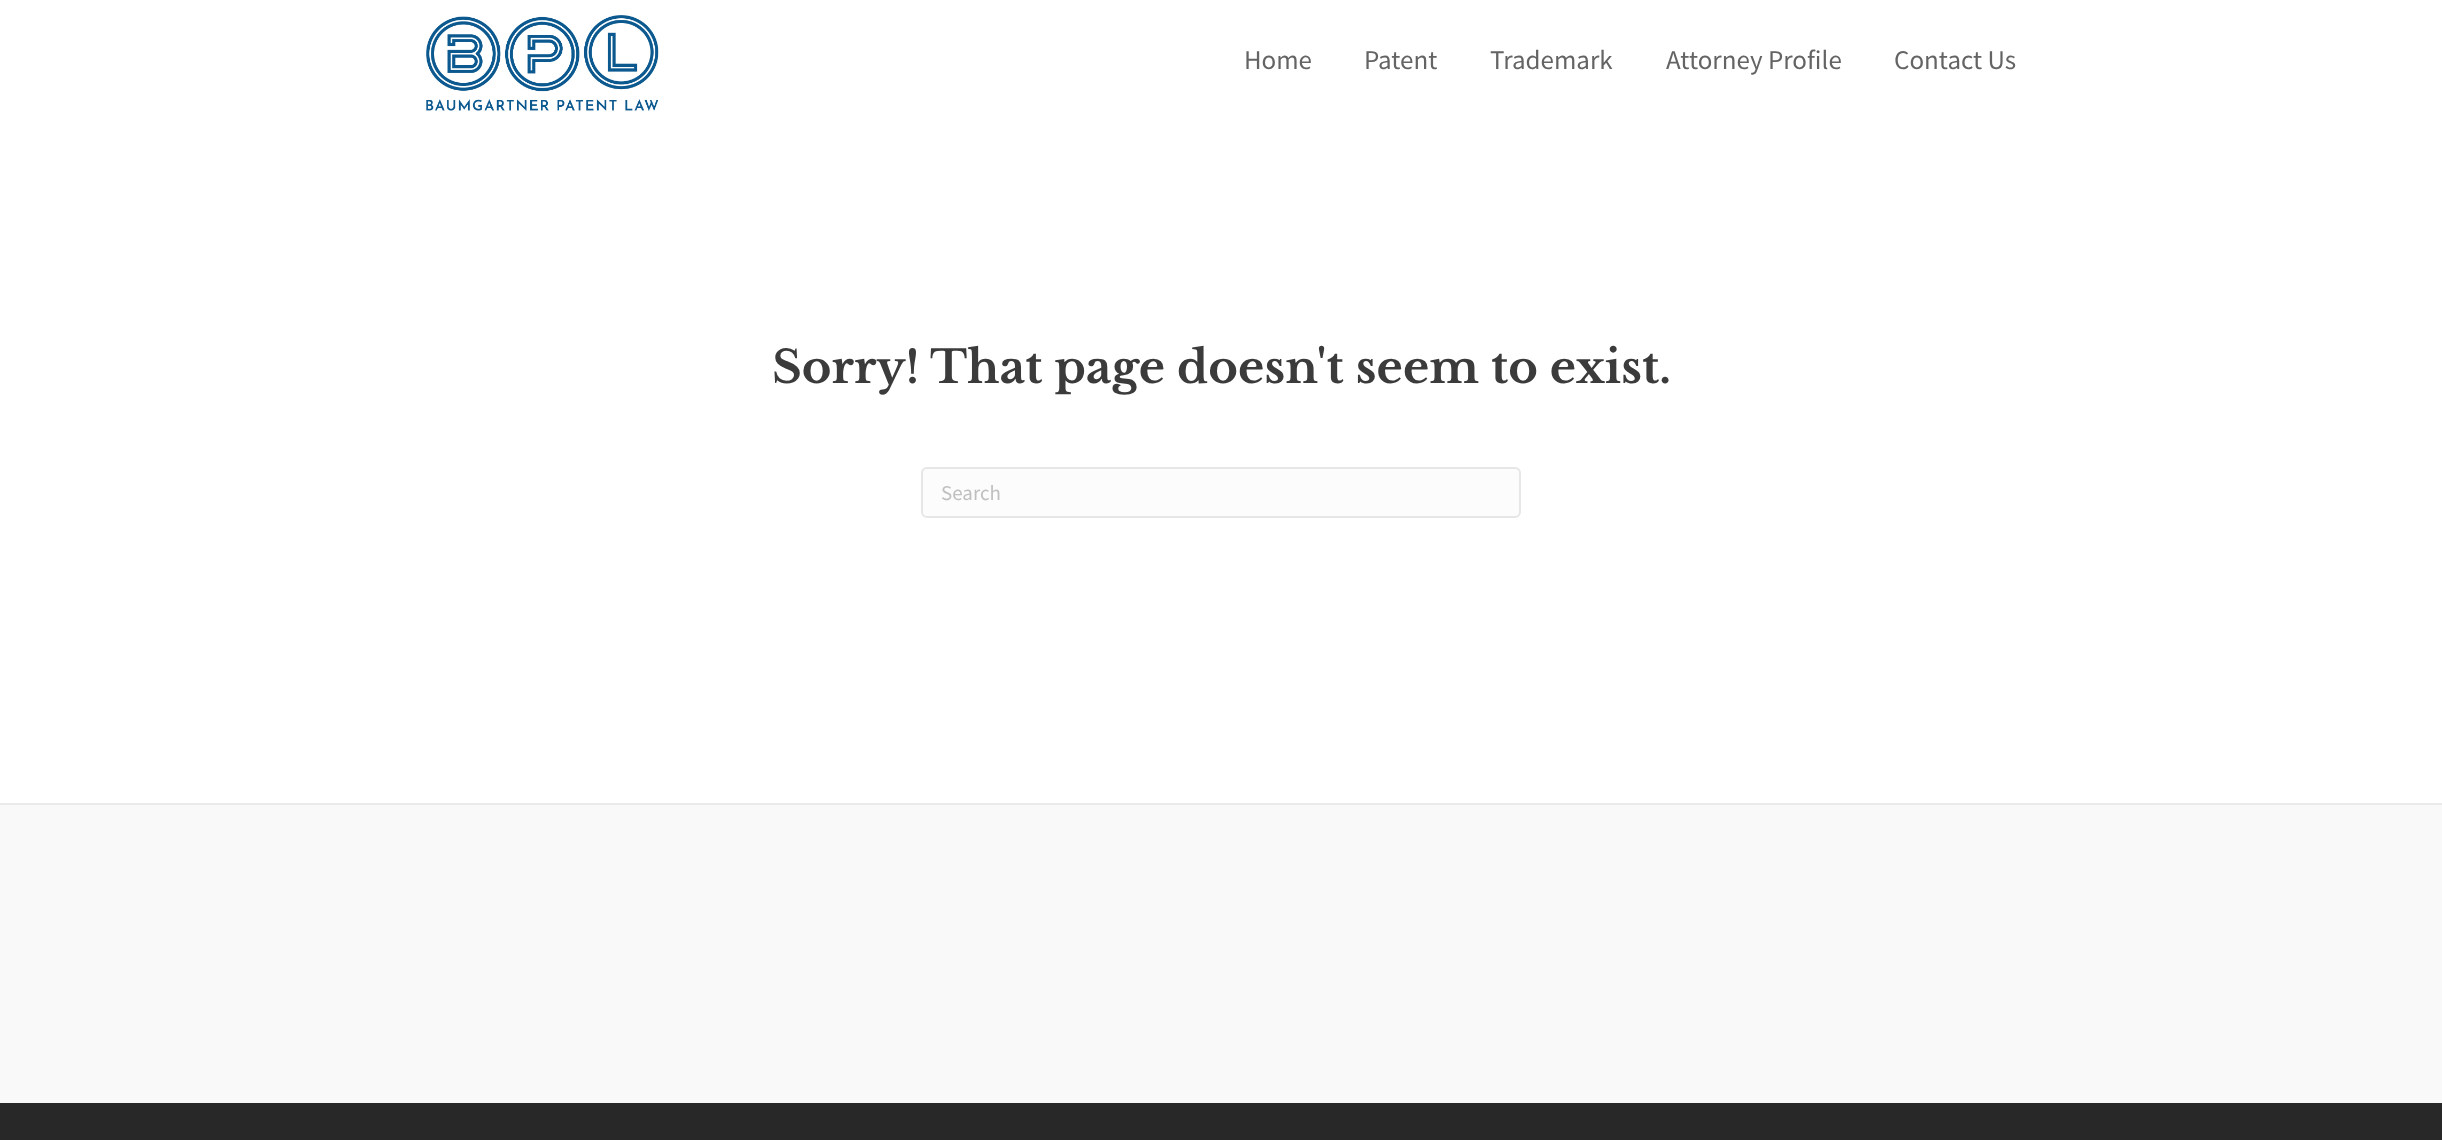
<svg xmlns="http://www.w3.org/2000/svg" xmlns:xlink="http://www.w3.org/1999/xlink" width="2442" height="1140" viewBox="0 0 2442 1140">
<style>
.cls-1{font:27px Source Sans Pro;fill:#646464}
.cls-2{font:bold 45px Libre Baskerville;fill:#3b3b3b}
.cls-3{font:21px Source Sans Pro;fill:#bfbfbf}
</style>
<rect width="100%" height="100%" fill="#ffffff"/>
<image xlink:href="image0.png" x="426" y="15" width="233" height="96"/>
<rect fill="#fcfcfc" stroke="#e6e6e6" stroke-width="2" x="922" y="468" width="598" height="49" rx="5"/>
<rect fill="#f9f9f9" x="0" y="805" width="2442" height="298"/>
<rect fill="#eaeaea" x="0" y="803" width="2442" height="2"/>
<rect fill="#282828" x="0" y="1103" width="2442" height="37"/>
<text class="cls-1" x="1244" y="69">Home</text>
<text class="cls-1" x="1364" y="69">Patent</text>
<text class="cls-1" x="1490" y="69">Trademark</text>
<text class="cls-1" x="1666" y="69">Attorney Profile</text>
<text class="cls-1" x="1894" y="69">Contact Us</text>
<text class="cls-2" x="772" y="383">Sorry! That page doesn't seem to exist.</text>
<text class="cls-3" x="941" y="500">Search</text>
</svg>
